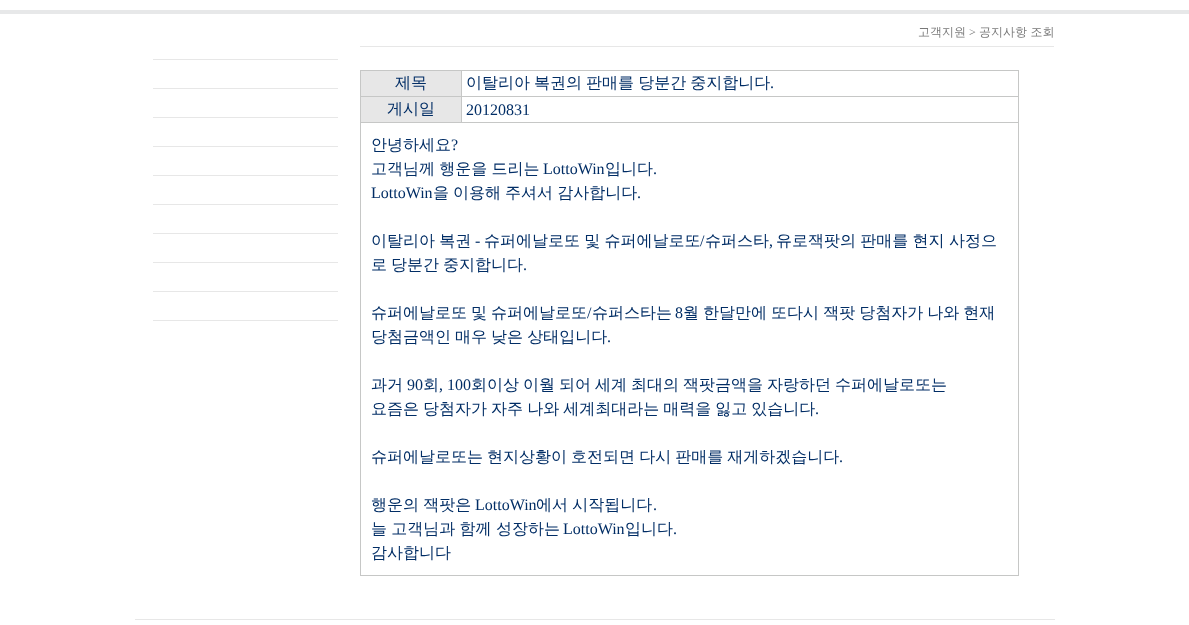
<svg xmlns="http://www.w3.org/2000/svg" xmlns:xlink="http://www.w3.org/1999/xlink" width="1189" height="625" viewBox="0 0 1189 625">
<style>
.cls-1{font:500 12px WenQuanYi Zen Hei;fill:#797979}
.cls-2{font:12px Liberation Serif;fill:#797979}
.cls-3{font:500 16px WenQuanYi Zen Hei;fill:#012d65}
.cls-4{font:16px Liberation Serif;fill:#012d65}
</style>
<rect width="100%" height="100%" fill="#ffffff"/>
<rect fill="#e7e8e9" x="0" y="10" width="1189" height="4"/>
<rect fill="#e7e7e7" x="153" y="59" width="185" height="1"/>
<rect fill="#e7e7e7" x="153" y="88" width="185" height="1"/>
<rect fill="#e7e7e7" x="153" y="117" width="185" height="1"/>
<rect fill="#e7e7e7" x="153" y="146" width="185" height="1"/>
<rect fill="#e7e7e7" x="153" y="175" width="185" height="1"/>
<rect fill="#e7e7e7" x="153" y="204" width="185" height="1"/>
<rect fill="#e7e7e7" x="153" y="233" width="185" height="1"/>
<rect fill="#e7e7e7" x="153" y="262" width="185" height="1"/>
<rect fill="#e7e7e7" x="153" y="291" width="185" height="1"/>
<rect fill="#e7e7e7" x="153" y="320" width="185" height="1"/>
<rect fill="#e7e7e7" x="360" y="46" width="694" height="1"/>
<rect fill="#c6c7c6" x="360" y="70" width="659" height="506"/>
<rect fill="#e7e7e7" x="361" y="71" width="100" height="25"/>
<rect fill="#ffffff" x="462" y="71" width="556" height="25"/>
<rect fill="#e7e7e7" x="361" y="97" width="100" height="25"/>
<rect fill="#ffffff" x="462" y="97" width="556" height="25"/>
<rect fill="#ffffff" x="361" y="123" width="657" height="452"/>
<rect fill="#e7e7e7" x="135" y="619" width="920" height="1"/>
<text class="cls-1" x="918" y="36">고객지원</text>
<text class="cls-2" x="969" y="36">&gt;</text>
<text class="cls-1" x="979" y="36">공지사항 조회</text>
<text class="cls-3" x="395" y="88">제목</text>
<text class="cls-3" x="466" y="88" word-spacing="-0.75">이탈리아 복권의 판매를 당분간 중지합니다</text>
<text class="cls-4" x="770" y="88">.</text>
<text class="cls-3" x="387" y="114">게시일</text>
<text class="cls-4" x="466" y="115">20120831</text>
<text class="cls-3" x="371" y="150">안녕하세요</text>
<text class="cls-4" x="451" y="150">?</text>
<text class="cls-3" x="371" y="174" word-spacing="-0.5">고객님께 행운을 드리는</text>
<text class="cls-4" x="543" y="174">LottoWin</text>
<text class="cls-3" x="605" y="174">입니다</text>
<text class="cls-4" x="653" y="174">.</text>
<text class="cls-4" x="371" y="198">LottoWin</text>
<text class="cls-3" x="433" y="198" word-spacing="-0.75">을 이용해 주셔서 감사합니다</text>
<text class="cls-4" x="637" y="198">.</text>
<text class="cls-3" x="371" y="246" word-spacing="-0.5">이탈리아 복권</text>
<text class="cls-4" x="475" y="246">-</text>
<text class="cls-3" x="484" y="246" word-spacing="-0.5">슈퍼에날로또 및 슈퍼에날로또</text>
<text class="cls-4" x="700" y="246">/</text>
<text class="cls-3" x="705" y="246">슈퍼스타</text>
<text class="cls-3" x="776" y="246" word-spacing="-0.5">유로잭팟의 판매를 현지 사정으</text>
<text class="cls-4" x="769" y="246">,</text>
<text class="cls-3" x="371" y="270" word-spacing="-0.75">로 당분간 중지합니다</text>
<text class="cls-4" x="523" y="270">.</text>
<text class="cls-3" x="371" y="318" word-spacing="-0.75">슈퍼에날로또 및 슈퍼에날로또</text>
<text class="cls-4" x="587" y="318">/</text>
<text class="cls-3" x="592" y="318">슈퍼스타는</text>
<text class="cls-4" x="675" y="318">8</text>
<text class="cls-3" x="683" y="318" word-spacing="-0.75">월 한달만에 또다시 잭팟 당첨자가 나와 현재</text>
<text class="cls-3" x="371" y="342" word-spacing="-0.75">당첨금액인 매우 낮은 상태입니다</text>
<text class="cls-4" x="607" y="342">.</text>
<text class="cls-3" x="371" y="390">과거</text>
<text class="cls-4" x="407" y="390">90</text>
<text class="cls-3" x="423" y="390">회</text>
<text class="cls-4" x="439" y="390">, 100</text>
<text class="cls-3" x="471" y="390">회이상</text>
<text class="cls-3" x="523" y="390">이월</text>
<text class="cls-3" x="559" y="390">되어</text>
<text class="cls-3" x="595" y="390">세계</text>
<text class="cls-3" x="631" y="390">최대의</text>
<text class="cls-3" x="683" y="390">잭팟금액을</text>
<text class="cls-3" x="767" y="390">자랑하던</text>
<text class="cls-3" x="835" y="390">수퍼에날로또는</text>
<text class="cls-3" x="371" y="414" word-spacing="-0.75">요즘은 당첨자가 자주 나와 세계최대라는 매력을 잃고 있습니다</text>
<text class="cls-4" x="815" y="414">.</text>
<text class="cls-3" x="371" y="462" word-spacing="-0.75">슈퍼에날로또는 현지상황이 호전되면 다시 판매를 재게하겠습니다</text>
<text class="cls-4" x="839" y="462">.</text>
<text class="cls-3" x="371" y="510" word-spacing="-0.5">행운의 잭팟은</text>
<text class="cls-4" x="475" y="510">LottoWin</text>
<text class="cls-3" x="536" y="510" word-spacing="-0.5">에서 시작됩니다</text>
<text class="cls-4" x="653" y="510">.</text>
<text class="cls-3" x="371" y="534" word-spacing="-0.5">늘 고객님과 함께 성장하는</text>
<text class="cls-4" x="563" y="534">LottoWin</text>
<text class="cls-3" x="625" y="534">입니다</text>
<text class="cls-4" x="673" y="534">.</text>
<text class="cls-3" x="371" y="558">감사합니다</text>
</svg>
